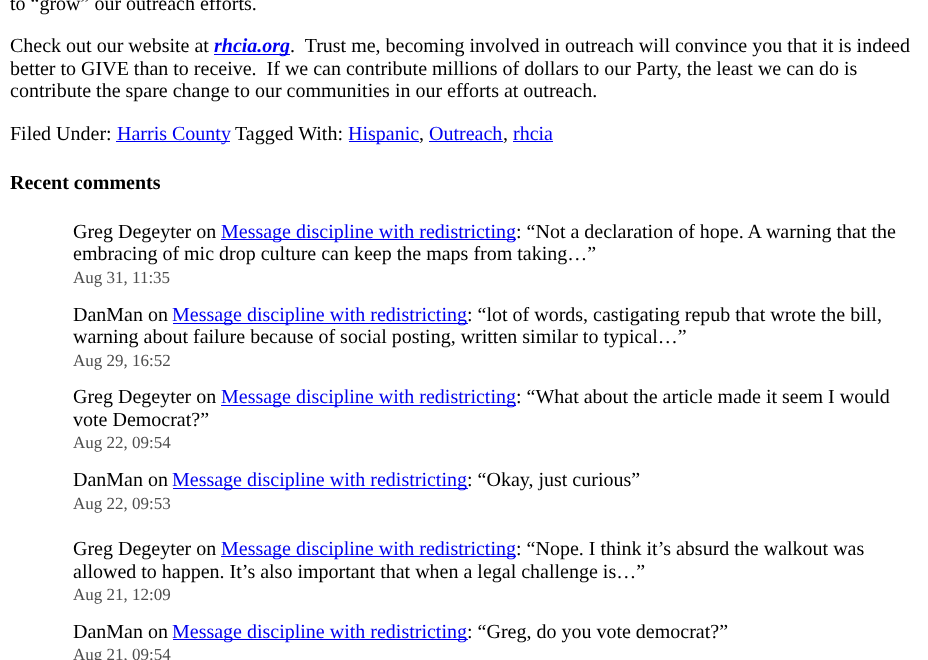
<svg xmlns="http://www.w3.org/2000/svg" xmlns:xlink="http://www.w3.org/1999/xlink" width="928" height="660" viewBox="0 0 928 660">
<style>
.cls-1{font:20px Liberation Serif;fill:#000000}
.cls-2{font:italic bold 20px Liberation Serif;fill:#0000ee}
.cls-3{font:20px Liberation Serif;fill:#0000ee}
.cls-4{font:bold 20px Liberation Serif;fill:#000000}
.cls-5{font:17px Liberation Serif;fill:#4d4d4d}
</style>
<rect width="100%" height="100%" fill="#ffffff"/>
<rect fill="#0000ee" x="214" y="54" width="76" height="1"/>
<rect fill="#0000ee" x="116" y="141" width="114" height="1"/>
<rect fill="#0000ee" x="349" y="141" width="70" height="1"/>
<rect fill="#0000ee" x="429" y="141" width="74" height="1"/>
<rect fill="#0000ee" x="513" y="141" width="40" height="1"/>
<rect fill="#0000ee" x="221" y="239" width="295" height="1"/>
<rect fill="#0000ee" x="173" y="323" width="295" height="1"/>
<rect fill="#0000ee" x="221" y="405" width="295" height="1"/>
<rect fill="#0000ee" x="173" y="488" width="295" height="1"/>
<rect fill="#0000ee" x="221" y="556" width="295" height="1"/>
<rect fill="#0000ee" x="173" y="639" width="295" height="1"/>
<text class="cls-1" x="10" y="10">to “grow” our outreach efforts.</text>
<text class="cls-1" x="10" y="52">Check out our website at</text>
<text class="cls-2" x="214" y="52">rhcia.org</text>
<text class="cls-1" xml:space="preserve" x="290" y="52">.  Trust me, becoming involved in outreach will convince you that it is indeed</text>
<text class="cls-1" xml:space="preserve"><tspan x="10" y="75">better to GIVE than to receive.  If we can contribute millions of dollars to our Party, the least we can do is</tspan><tspan x="10" y="97">contribute the spare change to our communities in our efforts at outreach.</tspan></text>
<text class="cls-1" x="10" y="140">Filed Under:</text>
<text class="cls-3" x="117" y="140">Harris County</text>
<text class="cls-1" x="235" y="140">Tagged With:</text>
<text class="cls-3" x="348" y="140">Hispanic</text>
<text class="cls-1" x="419" y="140">,</text>
<text class="cls-3" x="429" y="140">Outreach</text>
<text class="cls-1" x="503" y="140">,</text>
<text class="cls-3" x="513" y="140">rhcia</text>
<text class="cls-4" x="10" y="189">Recent comments</text>
<text class="cls-1" x="73" y="238">Greg Degeyter on</text>
<text class="cls-3" x="221" y="238">Message discipline with redistricting</text>
<text class="cls-1" x="516" y="238">: “Not a declaration of hope. A warning that the</text>
<text class="cls-1" x="73" y="260">embracing of mic drop culture can keep the maps from taking…”</text>
<text class="cls-5" x="73" y="283">Aug 31, 11:35</text>
<text class="cls-1" x="73" y="321">DanMan on</text>
<text class="cls-3" x="172" y="321">Message discipline with redistricting</text>
<text class="cls-1" x="467" y="321">: “lot of words, castigating repub that wrote the bill,</text>
<text class="cls-1" x="73" y="343">warning about failure because of social posting, written similar to typical…”</text>
<text class="cls-5" x="73" y="366">Aug 29, 16:52</text>
<text class="cls-1" x="73" y="403">Greg Degeyter on</text>
<text class="cls-3" x="221" y="403">Message discipline with redistricting</text>
<text class="cls-1" x="516" y="403">: “What about the article made it seem I would</text>
<text class="cls-1" x="73" y="426">vote Democrat?”</text>
<text class="cls-5" x="73" y="448">Aug 22, 09:54</text>
<text class="cls-1" x="73" y="486">DanMan on</text>
<text class="cls-3" x="172" y="486">Message discipline with redistricting</text>
<text class="cls-1" x="467" y="486">: “Okay, just curious”</text>
<text class="cls-5" x="73" y="509">Aug 22, 09:53</text>
<text class="cls-1" x="73" y="555">Greg Degeyter on</text>
<text class="cls-3" x="221" y="555">Message discipline with redistricting</text>
<text class="cls-1" x="516" y="555">: “Nope. I think it’s absurd the walkout was</text>
<text class="cls-1" x="73" y="578">allowed to happen. It’s also important that when a legal challenge is…”</text>
<text class="cls-5" x="73" y="600">Aug 21, 12:09</text>
<text class="cls-1" x="73" y="638">DanMan on</text>
<text class="cls-3" x="172" y="638">Message discipline with redistricting</text>
<text class="cls-1" x="467" y="638">: “Greg, do you vote democrat?”</text>
<text class="cls-5" x="73" y="660">Aug 21, 09:54</text>
</svg>
